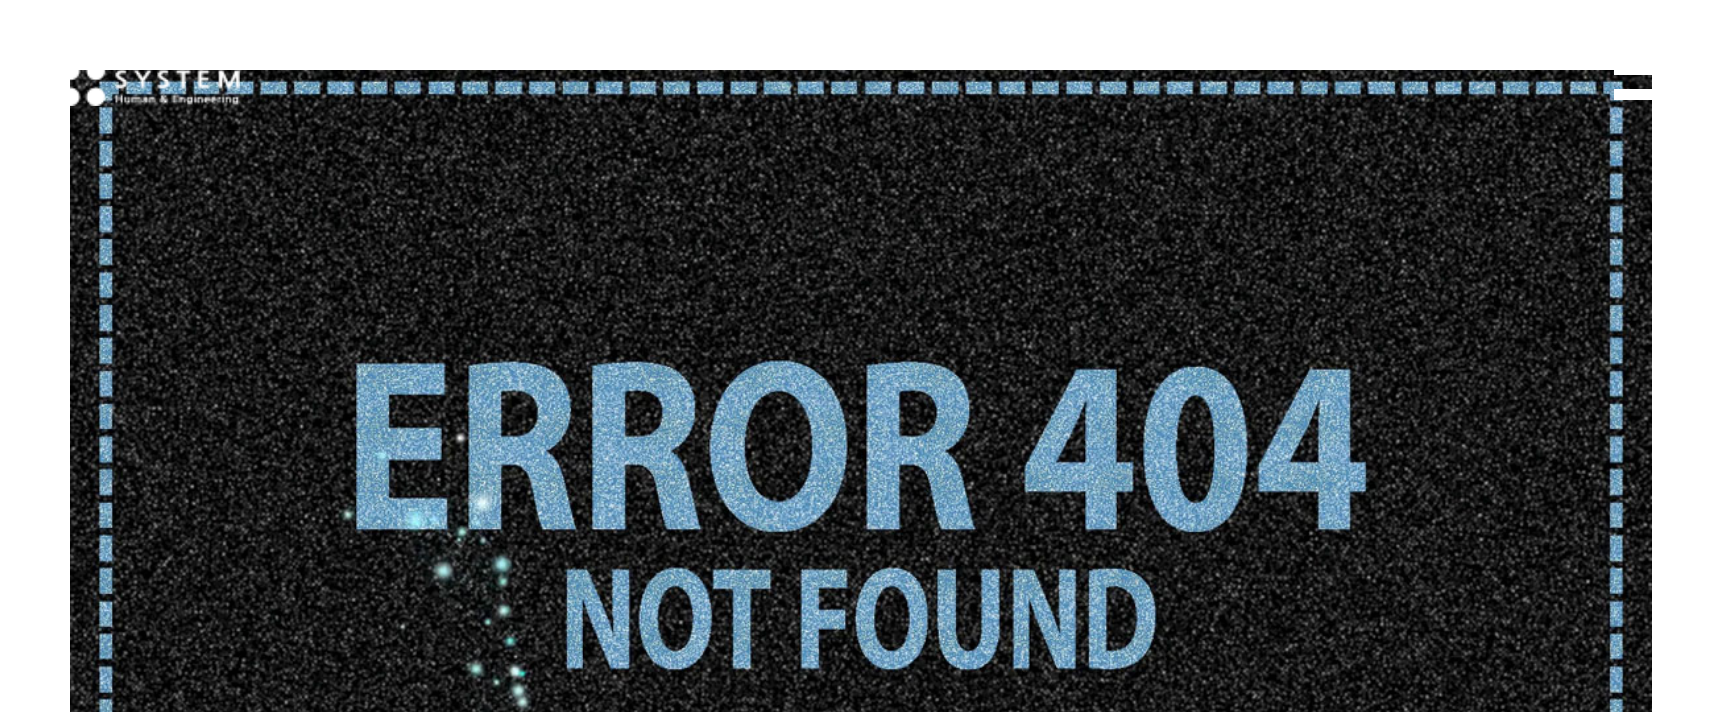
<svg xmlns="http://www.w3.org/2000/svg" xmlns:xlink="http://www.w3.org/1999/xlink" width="1722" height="712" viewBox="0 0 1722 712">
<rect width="100%" height="100%" fill="#ffffff"/>
<image xlink:href="image0.png" x="70" y="70" width="1582" height="642"/>
<image xlink:href="image1.png" x="70" y="70" width="170" height="36"/>
<rect fill="#ffffff" x="1614" y="70" width="38" height="5"/>
<rect fill="#ffffff" x="1614" y="89" width="38" height="11"/>
</svg>
